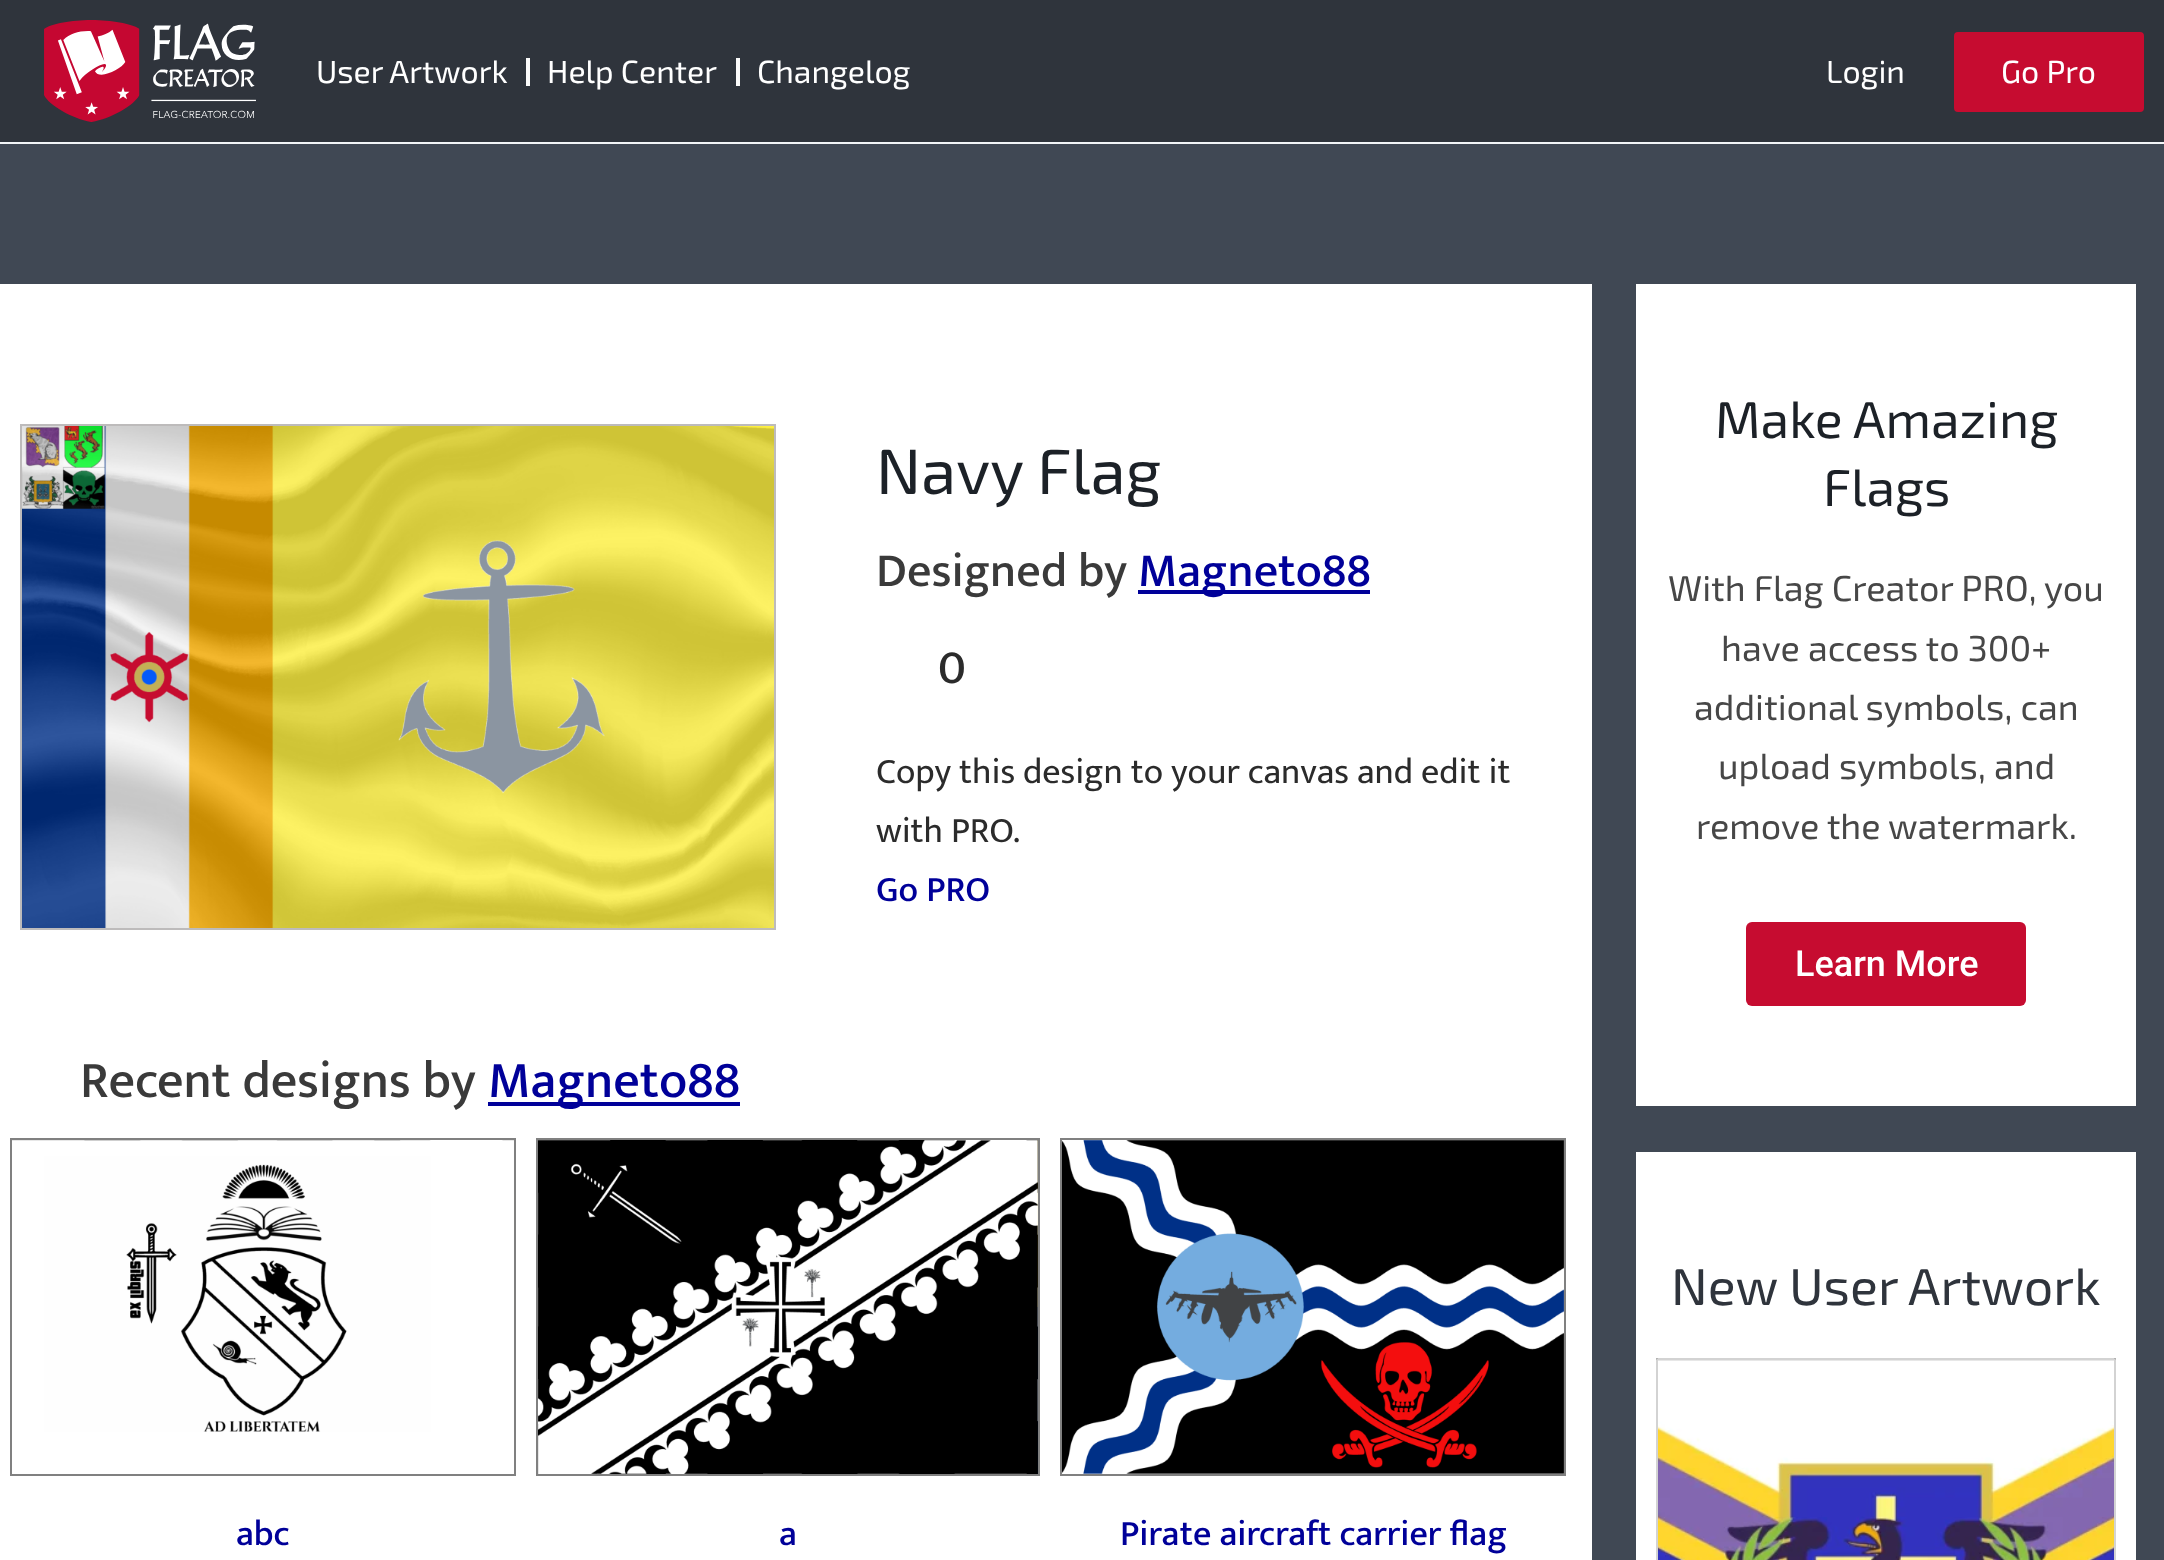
<svg xmlns="http://www.w3.org/2000/svg" xmlns:xlink="http://www.w3.org/1999/xlink" width="2164" height="1560" viewBox="0 0 2164 1560">
<style>
.cls-1{font:32px 'Exo 2';fill:#ffffff}
.cls-2{font:64px 'Exo 2';fill:#1c2127}
.cls-3{font:500 48px Mukta;fill:#3a3a3a}
.cls-4{font:500 48px Mukta;fill:#000099}
.cls-5{font:500 48px Mukta;fill:#2b2b2b}
.cls-6{font:36px Mukta;fill:#2b2b2b}
.cls-7{font:500 36px Mukta;fill:#000099}
.cls-8{font:500 52px Mukta;fill:#3a3a3a}
.cls-9{font:500 52px Mukta;fill:#000099}
.cls-10{font:52px 'Exo 2';fill:#1c2127}
.cls-11{font:36px 'Exo 2';fill:#474747}
.cls-12{font:500 36px Roboto;fill:#ffffff}
.cls-13{font:52px 'Exo 2';fill:#2f343c}
</style>
<rect width="100%" height="100%" fill="#2f343c"/>
<rect fill="#f2f5f7" x="0" y="142" width="2164" height="2"/>
<image xlink:href="image0.png" x="44" y="20" width="212" height="102"/>
<rect fill="#fbfbfb" x="526" y="58" width="4" height="28"/>
<rect fill="#fbfbfb" x="736" y="58" width="4" height="28"/>
<rect fill="#c60c30" x="1954" y="32" width="190" height="80" rx="4"/>
<rect fill="#404854" x="0" y="144" width="2164" height="1416"/>
<rect fill="#ffffff" x="0" y="284" width="1592" height="1276"/>
<rect fill="none" stroke="#bdbbbb" stroke-width="2" x="21" y="425" width="754" height="504"/>
<image xlink:href="image1.png" x="22" y="426" width="752" height="502"/>
<rect fill="#000099" x="1138" y="590" width="232" height="4"/>
<rect fill="#000099" x="488" y="1102" width="252" height="4"/>
<rect fill="none" stroke="#808080" stroke-width="2" x="11" y="1139" width="504" height="336"/>
<image xlink:href="image2.png" x="12" y="1140" width="502" height="292"/>
<rect fill="none" stroke="#808080" stroke-width="2" x="537" y="1139" width="502" height="336"/>
<image xlink:href="image3.png" x="538" y="1140" width="500" height="334"/>
<rect fill="none" stroke="#808080" stroke-width="2" x="1061" y="1139" width="504" height="336"/>
<image xlink:href="image4.png" x="1062" y="1140" width="502" height="334"/>
<rect fill="#ffffff" x="1636" y="284" width="500" height="822"/>
<rect fill="#c60c30" x="1746" y="922" width="280" height="84" rx="6"/>
<rect fill="#ffffff" x="1636" y="1152" width="500" height="408"/>
<image xlink:href="image5.png" x="1656" y="1358" width="460" height="202"/>
<path fill="#d3d3d3" fill-rule="evenodd" d="M1658 1358C1657 1358 1656 1359 1656 1360V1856C1656 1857 1657 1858 1658 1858H2114C2115 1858 2116 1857 2116 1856V1360C2116 1359 2115 1358 2114 1358ZM1658 1360V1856H2114V1360Z"/>
<text class="cls-1" x="316" y="83">User Artwork</text>
<text class="cls-1" x="547" y="83">Help Center</text>
<text class="cls-1" x="757" y="83">Changelog</text>
<text class="cls-1" x="1826" y="83">Login</text>
<text class="cls-1" x="2001" y="83">Go Pro</text>
<text class="cls-2" x="876" y="494">Navy Flag</text>
<text class="cls-3" x="876" y="586">Designed by</text>
<text class="cls-4" x="1138" y="586">Magneto88</text>
<text class="cls-5" x="938" y="683">0</text>
<text class="cls-6"><tspan x="876" y="783">Copy this design to your canvas and edit it</tspan><tspan x="876" y="842">with PRO.</tspan></text>
<text class="cls-7" x="876" y="901">Go PRO</text>
<text class="cls-8" x="80" y="1097">Recent designs by</text>
<text class="cls-9" x="488" y="1097">Magneto88</text>
<text class="cls-7" x="236" y="1545">abc</text>
<text class="cls-7" x="779" y="1545">a</text>
<text class="cls-7" x="1120" y="1545">Pirate aircraft carrier flag</text>
<text class="cls-10" x="1715" y="438">Make Amazing</text>
<text class="cls-10" x="1823" y="506">Flags</text>
<text class="cls-11" x="1668" y="601">With Flag Creator PRO, you</text>
<text class="cls-11" x="1721" y="661">have access to 300+</text>
<text class="cls-11" x="1694" y="720">additional symbols, can</text>
<text class="cls-11" x="1718" y="779">upload symbols, and</text>
<text class="cls-11" x="1696" y="839">remove the watermark.</text>
<text class="cls-12" x="1795" y="976">Learn More</text>
<text class="cls-13" x="1671" y="1305">New User Artwork</text>
</svg>
